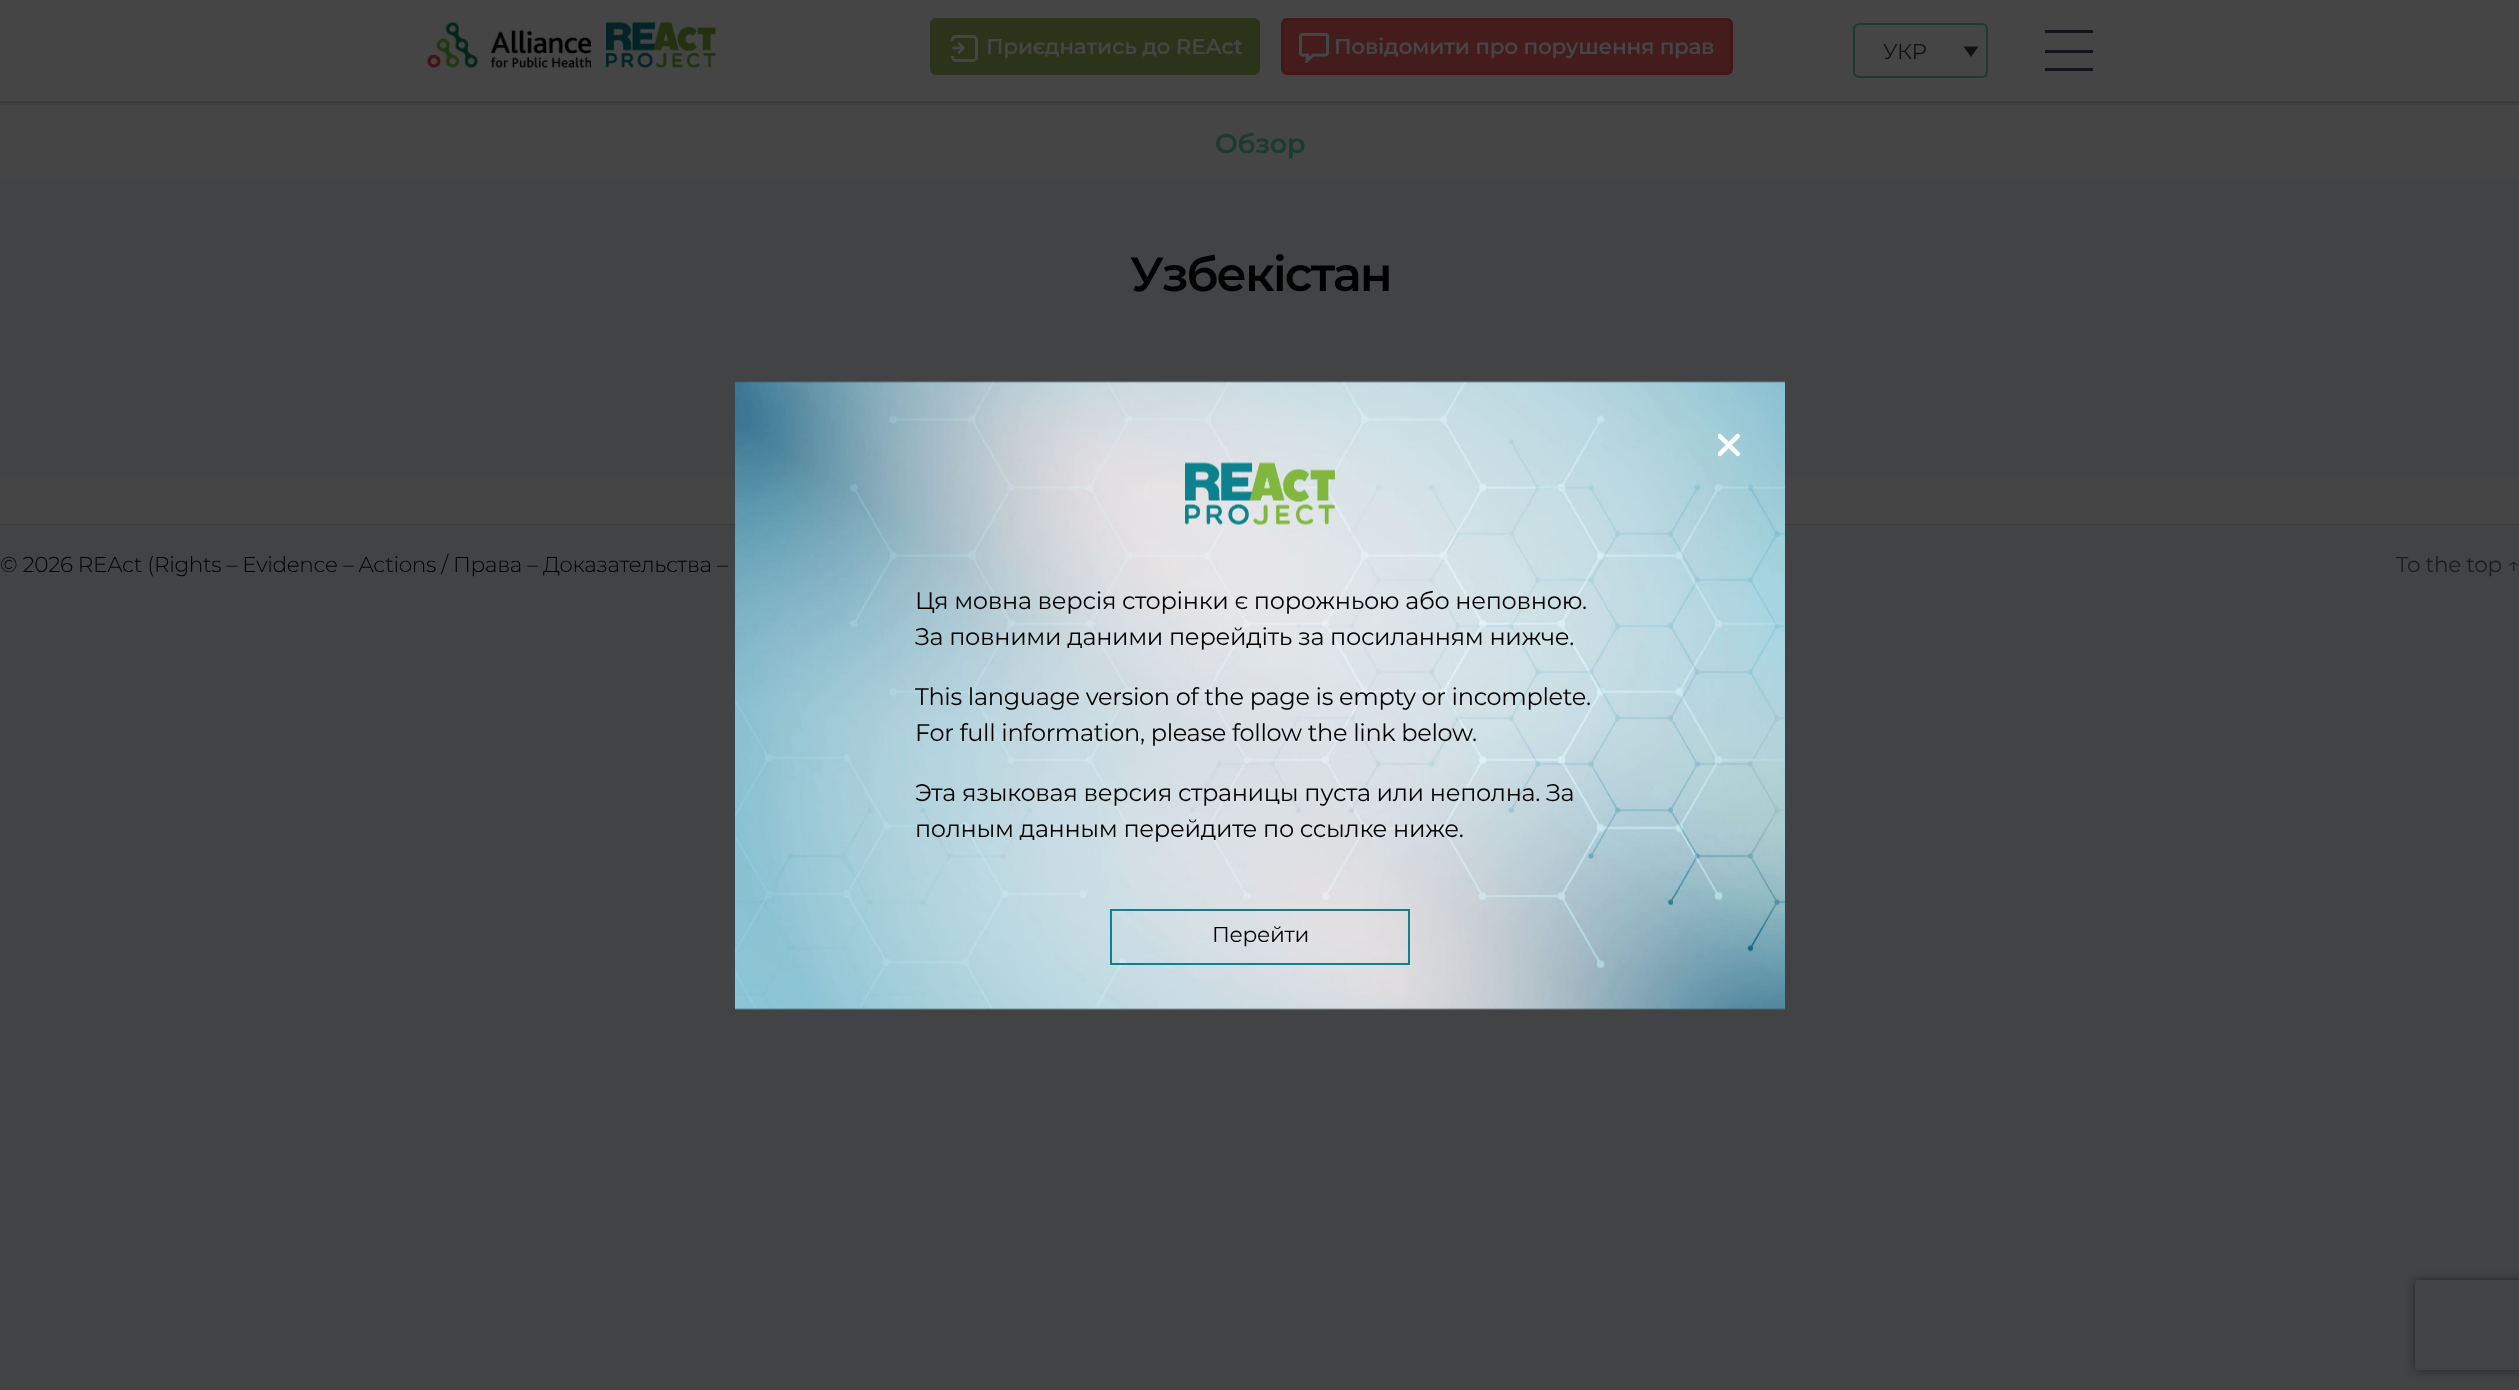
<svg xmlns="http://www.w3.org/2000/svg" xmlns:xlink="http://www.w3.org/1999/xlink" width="2519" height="1390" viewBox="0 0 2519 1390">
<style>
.cls-1{font:600 21.6px Montserrat;letter-spacing:-0.32px;fill:#454545}
.cls-2{font:21.6px Montserrat;letter-spacing:-0.32px;fill:#121212}
.cls-3{font:600 27px Montserrat;letter-spacing:-0.32px;fill:#1a3a32}
.cls-4{font:600 48px Montserrat;letter-spacing:-2px;fill:#000000}
.cls-5{font:300 21.6px Montserrat;letter-spacing:-0.32px;fill:#000000}
.cls-6{font:21.6px Montserrat;letter-spacing:-0.32px;fill:#1d1d1d}
.cls-7{font:24px Montserrat;letter-spacing:-0.32px;fill:#000000}
.cls-8{font:21.6px Montserrat;letter-spacing:-0.32px;fill:#000000}
</style>
<defs>
<clipPath id="clip1"><path d="M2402 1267H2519V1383H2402ZM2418 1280H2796C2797.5 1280 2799 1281.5 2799 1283V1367C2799 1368.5 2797.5 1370 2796 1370H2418C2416.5 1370 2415 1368.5 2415 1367V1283C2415 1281.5 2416.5 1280 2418 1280Z" clip-rule="evenodd"/></clipPath>
</defs>
<rect width="100%" height="100%" fill="#424344"/>
<rect fill="#454545" x="0" y="0" width="2519" height="101"/>
<rect fill="#3e3e3e" x="0" y="101" width="2519" height="1"/>
<rect fill="#404040" x="0" y="103" width="2519" height="2"/>
<rect fill="#3a3a3a" x="0" y="102" width="2519" height="1"/>
<image xlink:href="image0.png" x="427" y="22" width="164" height="46"/>
<image xlink:href="image1.png" x="606" y="22" width="110" height="46"/>
<rect fill="#2b331a" stroke="#2b331a" stroke-width="3" x="931.5" y="19.5" width="327" height="54" rx="4.5"/>
<image xlink:href="image2.png" x="951" y="35" width="27" height="27"/>
<rect fill="#431c1b" stroke="#421816" stroke-width="3" x="1282.5" y="19.5" width="449" height="54" rx="4.5"/>
<image xlink:href="image3.png" x="1299" y="33" width="30" height="30"/>
<rect fill="none" stroke="#1a3a32" stroke-width="2" x="1854" y="24" width="133" height="53" rx="5"/>
<path fill="#121212" d="M1963.5 46.5H1978.5L1971 57Z"/>
<rect fill="#13151a" x="2045" y="30" width="48" height="3"/>
<rect fill="#13151a" x="2045" y="50" width="48" height="3"/>
<rect fill="#13151a" x="2045" y="68" width="48" height="3"/>
<rect fill="#454545" x="0" y="105" width="2519" height="78"/>
<rect fill="#454545" x="0" y="476" width="2519" height="48"/>
<rect fill="#3b3b3b" x="0" y="524" width="2519" height="1"/>
<image xlink:href="image4.png" x="735" y="381" width="1050" height="629"/>
<image xlink:href="image5.png" x="1718" y="433" width="22" height="24"/>
<image xlink:href="image6.png" x="1185" y="462" width="150" height="63"/>
<rect fill="none" stroke="#0d818d" stroke-width="2" x="1111" y="910" width="298" height="54"/>
<g clip-path="url(#clip1)">
<rect fill="#232323" filter="blur(4px)" x="2415" y="1280" width="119" height="90" rx="3"/>
</g>
<text class="cls-1" x="986" y="54">Приєднатись до REAct</text>
<text class="cls-1" x="1334" y="54">Повідомити про порушення прав</text>
<text class="cls-2" x="1883" y="59">УКР</text>
<text class="cls-3" x="1215" y="153">Обзор</text>
<text class="cls-4" x="1130" y="291">Узбекістан</text>
<text class="cls-5" x="0" y="572">© 2026 REAct (Rights – Evidence – Actions / Права – Доказательства –</text>
<text class="cls-6" x="2396" y="572">To the top ↑</text>
<text class="cls-7"><tspan x="915" y="609">Ця мовна версія сторінки є порожньою або неповною.</tspan><tspan x="915" y="645">За повними даними перейдіть за посиланням нижче.</tspan></text>
<text class="cls-7"><tspan x="915" y="705">This language version of the page is empty or incomplete.</tspan><tspan x="915" y="741">For full information, please follow the link below.</tspan></text>
<text class="cls-7"><tspan x="915" y="801">Эта языковая версия страницы пуста или неполна. За</tspan><tspan x="915" y="837">полным данным перейдите по ссылке ниже.</tspan></text>
<text class="cls-8" x="1212" y="942">Перейти</text>
</svg>
